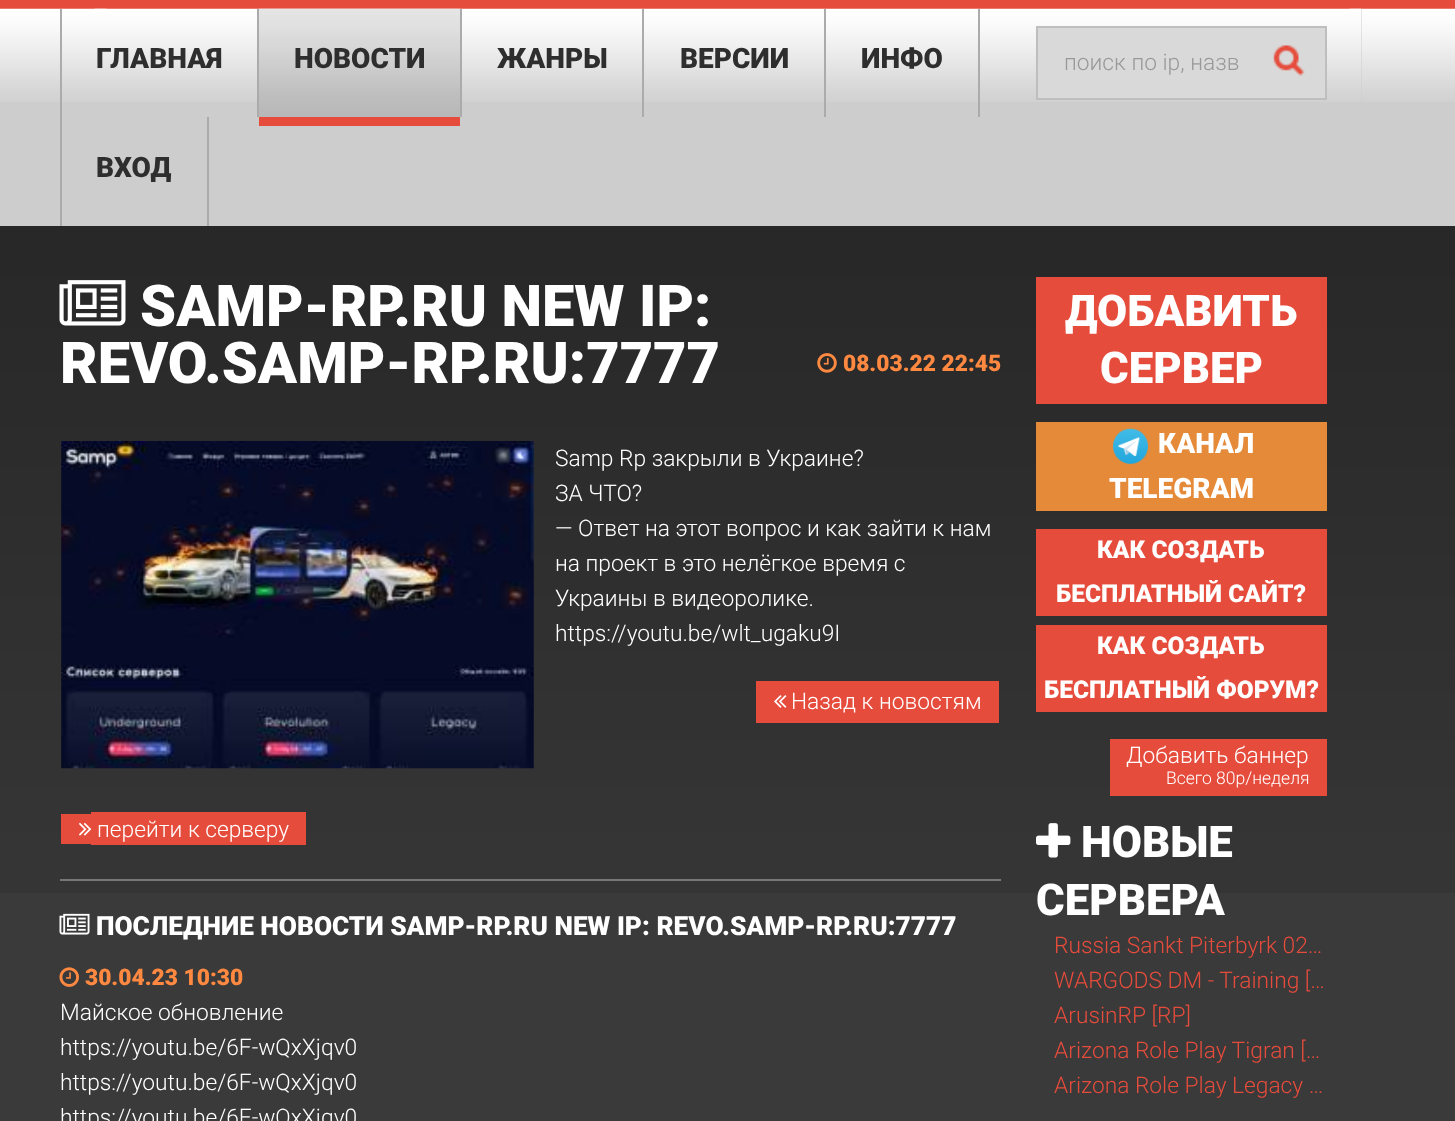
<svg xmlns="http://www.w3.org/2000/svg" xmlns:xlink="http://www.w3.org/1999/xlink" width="1455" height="1121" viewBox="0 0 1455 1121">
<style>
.cls-1{font:900 28px Roboto;fill:#2e2e2e}
.cls-2{font:300 22.75px Roboto;fill:#999999}
.cls-3{font:900 57.75px Roboto;fill:#ffffff}
.cls-4{font:900 22.75px Roboto;fill:#ff8941}
.cls-5{font:300 22.75px Roboto;fill:#ffffff}
.cls-6{font:900 26.25px Roboto;fill:#ffffff}
.cls-7{font:900 43.75px Roboto;fill:#ffffff}
.cls-8{font:900 28px Roboto;fill:#ffffff}
.cls-9{font:900 24.5px Roboto;fill:#ffffff}
.cls-10{font:300 17.5px Roboto;fill:#ffffff}
.cls-11{font:300 22.75px Roboto;fill:#e64c3c}
</style>
<rect width="100%" height="100%" fill="#3a3a3a"/>
<rect fill="#e64c3c" x="0" y="0" width="1455" height="9"/>
<image xlink:href="image1.png" x="0" y="8" width="107" height="94"/>
<image xlink:href="image4.png" x="1349" y="8" width="106" height="94"/>
<rect fill="#cdcdcd" x="95" y="9" width="1267" height="217"/>
<image xlink:href="image0.png" x="94" y="8" width="1268" height="94"/>
<rect fill="#cdcdcd" x="0" y="102" width="95" height="124"/>
<rect fill="#ababab" x="60" y="9" width="2" height="217"/>
<rect fill="#ababab" x="257" y="9" width="2" height="108"/>
<image xlink:href="image2.png" x="259" y="8" width="202" height="110"/>
<rect fill="#ababab" x="460" y="9" width="2" height="108"/>
<rect fill="#e64c3c" x="259" y="117" width="201" height="9"/>
<rect fill="#ababab" x="642" y="9" width="2" height="108"/>
<rect fill="#ababab" x="824" y="9" width="2" height="108"/>
<rect fill="#ababab" x="978" y="9" width="2" height="108"/>
<rect fill="#ababab" x="207" y="117" width="2" height="109"/>
<rect fill="#d9d9d9" x="1038" y="28" width="287" height="70"/>
<image xlink:href="image3.png" x="1273" y="45" width="32" height="31"/>
<rect fill="none" stroke="#bebebe" stroke-width="2" x="1037" y="27" width="289" height="72"/>
<rect fill="#cdcdcd" x="1362" y="102" width="93" height="124"/>
<image xlink:href="image5.png" x="0" y="226" width="1455" height="667"/>
<image xlink:href="image6.png" x="59" y="280" width="67" height="46"/>
<image xlink:href="image7.png" x="817" y="353" width="20" height="20"/>
<rect fill="#777777" x="60" y="879" width="941" height="2"/>
<rect fill="#e64c3c" x="756" y="681" width="243" height="42"/>
<image xlink:href="image8.png" x="774" y="695" width="13" height="13"/>
<image xlink:href="image9.png" x="61" y="441" width="473" height="328"/>
<rect fill="#e64c3c" x="61" y="814" width="30" height="30"/>
<rect fill="#e64c3c" x="91" y="812" width="215" height="33"/>
<image xlink:href="image10.png" x="79" y="822" width="13" height="14"/>
<image xlink:href="image11.png" x="59" y="913" width="31" height="22"/>
<image xlink:href="image12.png" x="59" y="967" width="20" height="20"/>
<rect fill="#e64c3c" x="1036" y="277" width="291" height="127"/>
<rect fill="#e58a38" x="1036" y="422" width="291" height="89"/>
<image xlink:href="image13.png" x="1113" y="428" width="35" height="36"/>
<rect fill="#e64c3c" x="1036" y="529" width="291" height="87"/>
<rect fill="#e64c3c" x="1036" y="625" width="291" height="87"/>
<rect fill="#e64c3c" x="1110" y="739" width="217" height="57"/>
<image xlink:href="image14.png" x="1036" y="823" width="35" height="35"/>
<text class="cls-1" x="96" y="68">ГЛАВНАЯ</text>
<text class="cls-1" x="294" y="68">НОВОСТИ</text>
<text class="cls-1" x="497" y="68">ЖАНРЫ</text>
<text class="cls-1" x="680" y="68">ВЕРСИИ</text>
<text class="cls-1" x="861" y="68">ИНФО</text>
<text class="cls-1" x="96" y="177">ВХОД</text>
<text class="cls-2" x="1064" y="70">поиск по ip, назв</text>
<text class="cls-3" x="140" y="326">SAMP-RP.RU NEW IP:</text>
<text class="cls-3" x="60" y="383">REVO.SAMP-RP.RU:7777</text>
<text class="cls-4" x="843" y="371">08.03.22 22:45</text>
<text class="cls-5"><tspan x="555" y="466">Samp Rp закрыли в Украине?</tspan><tspan x="555" y="501">ЗА ЧТО?</tspan><tspan x="555" y="536">— Ответ на этот вопрос и как зайти к нам</tspan><tspan x="555" y="571">на проект в это нелёгкое время с</tspan><tspan x="555" y="606">Украины в видеоролике.</tspan><tspan x="555" y="641">https://youtu.be/wlt_ugaku9I</tspan></text>
<text class="cls-5" x="791" y="709">Назад к новостям</text>
<text class="cls-5" x="97" y="837">перейти к серверу</text>
<text class="cls-6" x="96" y="935">ПОСЛЕДНИЕ НОВОСТИ SAMP-RP.RU NEW IP: REVO.SAMP-RP.RU:7777</text>
<text class="cls-4" x="85" y="985">30.04.23 10:30</text>
<text class="cls-5"><tspan x="60" y="1020">Майское обновление</tspan><tspan x="60" y="1055">https://youtu.be/6F-wQxXjqv0</tspan><tspan x="60" y="1090">https://youtu.be/6F-wQxXjqv0</tspan><tspan x="60" y="1125">https://youtu.be/6F-wQxXjqv0</tspan></text>
<text class="cls-7" x="1065" y="326">ДОБАВИТЬ</text>
<text class="cls-7" x="1100" y="383">СЕРВЕР</text>
<text class="cls-8" x="1158" y="453">КАНАЛ</text>
<text class="cls-8" x="1109" y="498">TELEGRAM</text>
<text class="cls-9" x="1097" y="558">КАК СОЗДАТЬ</text>
<text class="cls-9" x="1056" y="602">БЕСПЛАТНЫЙ САЙТ?</text>
<text class="cls-9" x="1097" y="654">КАК СОЗДАТЬ</text>
<text class="cls-9" x="1044" y="698">БЕСПЛАТНЫЙ ФОРУМ?</text>
<text class="cls-5" x="1126" y="763">Добавить баннер</text>
<text class="cls-10" x="1166" y="784">Всего 80р/неделя</text>
<text class="cls-7" x="1081" y="857">НОВЫЕ</text>
<text class="cls-7" x="1036" y="915">СЕРВЕРА</text>
<text class="cls-11"><tspan x="1054" y="953">Russia Sankt Piterbyrk 02…</tspan><tspan x="1054" y="988">WARGODS DM - Training […</tspan><tspan x="1054" y="1023">ArusinRP [RP]</tspan><tspan x="1054" y="1058">Arizona Role Play Tigran […</tspan><tspan x="1054" y="1093">Arizona Role Play Legacy …</tspan></text>
</svg>
